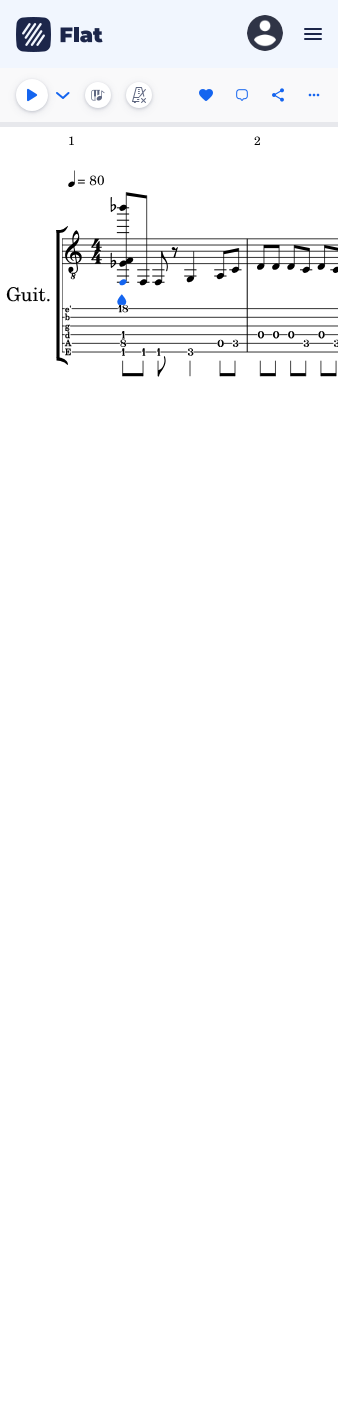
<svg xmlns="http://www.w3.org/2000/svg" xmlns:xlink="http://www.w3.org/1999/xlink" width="338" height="1410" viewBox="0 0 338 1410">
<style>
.cls-1{font:12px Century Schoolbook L;fill:#000000}
.cls-2{font:19px Century Schoolbook L;fill:#000000}
</style>
<defs>
<linearGradient id="g1" gradientUnits="userSpaceOnUse" x1="62" y1="784" x2="338" y2="784"><stop offset="0" stop-color="#ffffff"/><stop offset="0.04" stop-color="#ffffff"/><stop offset="0.08" stop-color="#ffffff" stop-opacity="0.5"/></linearGradient>
</defs>
<rect width="100%" height="100%" fill="#ffffff"/>
<rect fill="#f1f6fe" x="0" y="0" width="338" height="68"/>
<image xlink:href="image0.png" x="16" y="17" width="87" height="35"/>
<circle fill="#ffffff" cx="265" cy="33" r="18"/>
<image xlink:href="image1.png" x="247" y="15" width="36" height="36"/>
<rect fill="#1c264a" x="304" y="28" width="18" height="2" rx="1"/>
<rect fill="#1c264a" x="304" y="33" width="18" height="2" rx="1"/>
<rect fill="#1c264a" x="304" y="38" width="18" height="2" rx="1"/>
<rect fill="#f9f9fa" x="0" y="68" width="338" height="54"/>
<rect fill="#28304f" fill-opacity="0.2" filter="blur(1.5px)" x="16" y="80" width="32" height="32" rx="16"/>
<rect fill="#28304f" fill-opacity="0.1" filter="blur(4px)" x="16" y="81" width="32" height="32" rx="16"/>
<circle fill="#ffffff" cx="32" cy="95" r="16"/>
<image xlink:href="image2.png" x="27" y="88" width="11" height="14"/>
<path fill="none" stroke="#1565ef" stroke-width="2" stroke-linecap="round" stroke-linejoin="round" d="M57 93L63 98L68.5 93"/>
<rect fill="#28304f" fill-opacity="0.2" filter="blur(1.5px)" x="85" y="83" width="26" height="26" rx="13"/>
<rect fill="#28304f" fill-opacity="0.1" filter="blur(4px)" x="85" y="84" width="26" height="26" rx="13"/>
<circle fill="#ffffff" cx="98" cy="95" r="13"/>
<image xlink:href="image3.png" x="91" y="89" width="14" height="12"/>
<rect fill="#28304f" fill-opacity="0.2" filter="blur(1.5px)" x="126" y="83" width="26" height="26" rx="13"/>
<rect fill="#28304f" fill-opacity="0.1" filter="blur(4px)" x="126" y="84" width="26" height="26" rx="13"/>
<circle fill="#ffffff" cx="139" cy="95" r="13"/>
<image xlink:href="image4.png" x="132" y="87" width="14" height="16"/>
<image xlink:href="image5.png" x="199" y="89" width="14" height="12"/>
<image xlink:href="image6.png" x="236" y="89" width="12" height="12"/>
<image xlink:href="image7.png" x="272" y="88" width="12" height="14"/>
<image xlink:href="image8.png" x="308" y="93" width="12" height="4"/>
<rect fill="#e7e8ec" x="0" y="122" width="338" height="5"/>
<rect fill="url(#g1)" x="62" y="225" width="6" height="140"/>
<image xlink:href="image9.png" x="62" y="170" width="276" height="207"/>
<path fill="#000000" d="M56.5 233C56.5 230.5 55 230 57.5 230C59.5 230 61.5 230 63.5 229L67 226.5C67 226 68 225.5 68 226.5L66.5 229C65.5 231 64 232 62.5 232.5C60 233 58.5 233 56.5 233Z"/>
<path fill="#000000" d="M56.5 360.5V357.5H59.5C62.5 358 68 360.5 68 364.5C68 365 67.5 365 67 364.5L64.5 362.5L60.5 361Z"/>
<path fill="none" stroke="#000000" stroke-width="3.1" d="M58 232.5V358"/>
<text class="cls-1" x="68" y="145">1</text>
<text class="cls-1" x="254" y="145">2</text>
<text class="cls-2" x="6" y="301">Guit.</text>
</svg>
